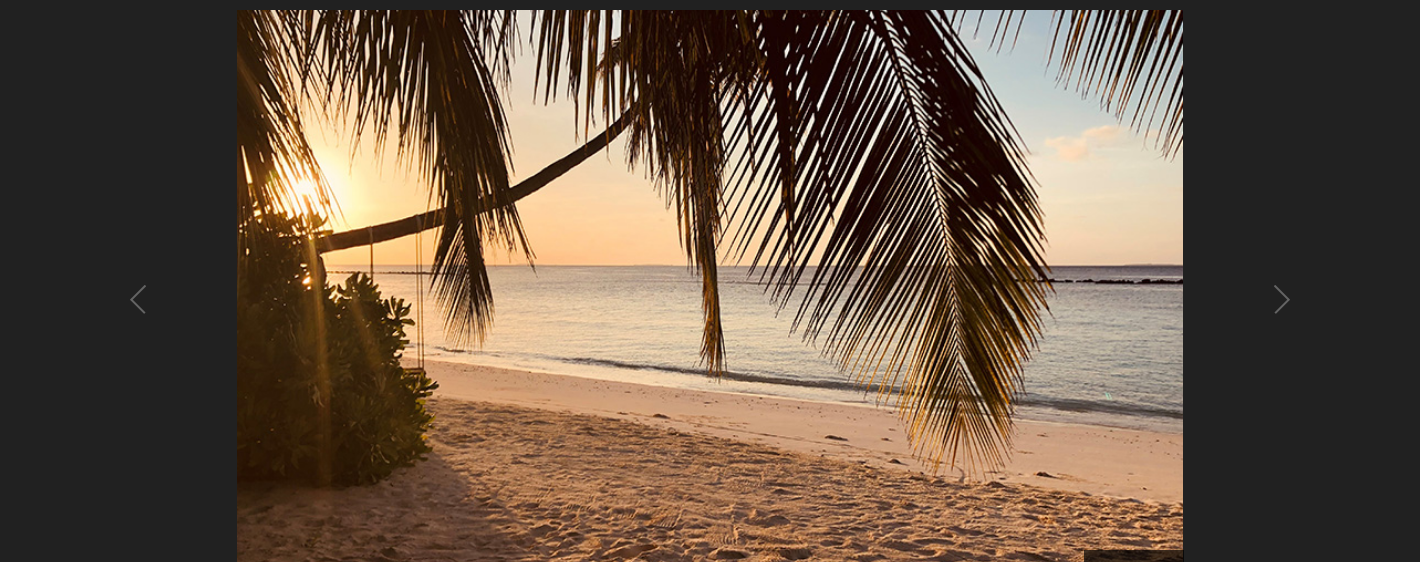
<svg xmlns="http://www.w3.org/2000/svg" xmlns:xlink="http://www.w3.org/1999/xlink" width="1420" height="562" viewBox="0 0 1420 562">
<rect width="100%" height="100%" fill="#212121"/>
<image xlink:href="image0.png" x="237" y="10" width="946" height="552"/>
<image xlink:href="image1.png" x="130" y="285" width="16" height="29"/>
<image xlink:href="image2.png" x="1274" y="285" width="16" height="29"/>
<rect fill="#000000" fill-opacity="0.7" x="1084" y="550" width="100" height="12"/>
</svg>
